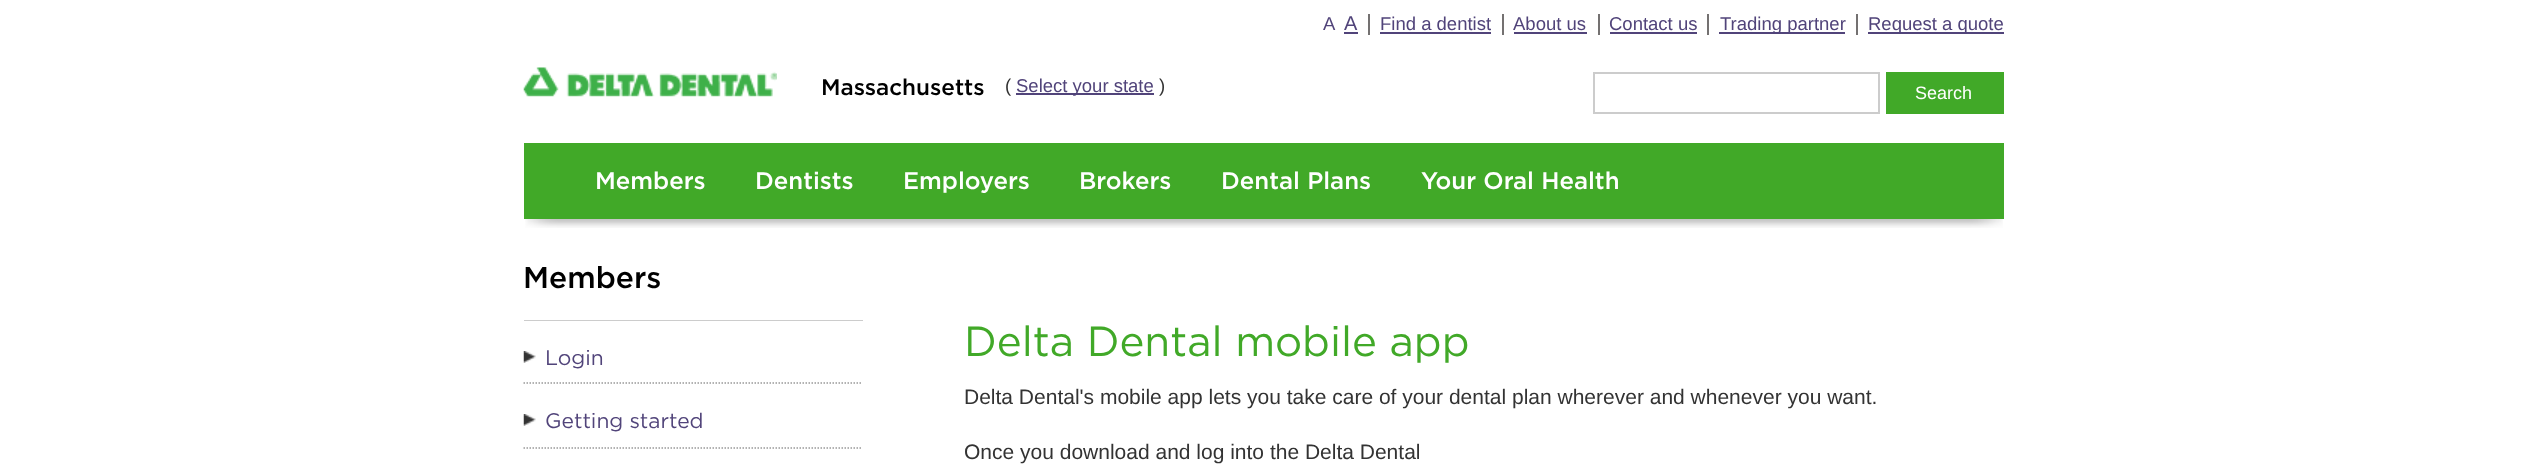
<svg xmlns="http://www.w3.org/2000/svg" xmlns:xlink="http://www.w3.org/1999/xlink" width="2526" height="464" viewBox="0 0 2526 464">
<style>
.cls-1{font:18.5px Liberation Sans;fill:#51447a}
.cls-2{font:20px Liberation Sans;fill:#51447a}
.cls-3{font:300 22.5px 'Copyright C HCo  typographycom';fill:#000000}
.cls-4{font:18.5px Liberation Sans;fill:#333333}
.cls-5{font:18px Liberation Sans;fill:#ffffff}
.cls-6{font:300 24px 'Copyright C HCo  typographycom';fill:#ffffff}
.cls-7{font:300 30px 'Copyright C HCo  typographycom';fill:#000000}
.cls-8{font:300 21px 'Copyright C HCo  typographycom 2';fill:#51447a}
.cls-9{font:300 42px 'Copyright C HCo  typographycom 2';fill:#41a928}
.cls-10{font:21px Liberation Sans;fill:#333333}
</style>
<rect width="100%" height="100%" fill="#ffffff"/>
<rect fill="#51447a" x="1344" y="32" width="14" height="2"/>
<rect fill="#747171" x="1368" y="14" width="2" height="21"/>
<rect fill="#51447a" x="1380" y="32" width="111" height="2"/>
<rect fill="#747171" x="1502" y="14" width="2" height="21"/>
<rect fill="#51447a" x="1514" y="32" width="73" height="2"/>
<rect fill="#747171" x="1598" y="14" width="2" height="21"/>
<rect fill="#51447a" x="1610" y="32" width="87" height="2"/>
<rect fill="#747171" x="1707" y="14" width="2" height="21"/>
<rect fill="#51447a" x="1719" y="32" width="126" height="2"/>
<rect fill="#747171" x="1856" y="14" width="2" height="21"/>
<rect fill="#51447a" x="1868" y="32" width="136" height="2"/>
<image xlink:href="image0.png" x="523" y="67" width="254" height="30"/>
<rect fill="#51447a" x="1016" y="93" width="138" height="2"/>
<rect fill="none" stroke="#cccccc" stroke-width="2" x="1594" y="73" width="285" height="40"/>
<rect fill="#41a928" x="1886" y="72" width="118" height="42"/>
<rect fill="#41a928" x="524" y="143" width="1480" height="76"/>
<image xlink:href="image1.png" x="525" y="219" width="1478" height="9"/>
<rect fill="#cccccc" x="524" y="320" width="339" height="1"/>
<image xlink:href="image2.png" x="523" y="351" width="13" height="12"/>
<path fill="none" stroke="#999999" stroke-width="1.5" stroke-dasharray="1.5 1.5" d="M523.5 383H862.5"/>
<image xlink:href="image2.png" x="523" y="414" width="13" height="12"/>
<path fill="none" stroke="#999999" stroke-width="1.5" stroke-dasharray="1.5 1.5" d="M523.5 448H862.5"/>
<text class="cls-1" x="1323" y="30">A</text>
<text class="cls-2" x="1344" y="30">A</text>
<text class="cls-1" x="1380" y="30">Find a dentist</text>
<text class="cls-1" x="1513" y="30">About us</text>
<text class="cls-1" x="1609" y="30">Contact us</text>
<text class="cls-1" x="1720" y="30">Trading partner</text>
<text class="cls-1" x="1868" y="30">Request a quote</text>
<text class="cls-3" x="821" y="95">Massachusetts</text>
<text class="cls-4" x="1005" y="92">(</text>
<text class="cls-1" x="1016" y="92">Select your state</text>
<text class="cls-4" x="1159" y="92">)</text>
<text class="cls-5" x="1915" y="99">Search</text>
<text class="cls-6" x="595" y="189">Members</text>
<text class="cls-6" x="755" y="189">Dentists</text>
<text class="cls-6" x="903" y="189">Employers</text>
<text class="cls-6" x="1079" y="189">Brokers</text>
<text class="cls-6" x="1221" y="189">Dental Plans</text>
<text class="cls-6" x="1421" y="189">Your Oral Health</text>
<text class="cls-7" x="523" y="288">Members</text>
<text class="cls-8" x="545" y="365">Login</text>
<text class="cls-8" x="545" y="428">Getting started</text>
<text class="cls-9" x="964" y="356">Delta Dental mobile app</text>
<text class="cls-10" x="964" y="404">Delta Dental's mobile app lets you take care of your dental plan wherever and whenever you want.</text>
<text class="cls-10" x="964" y="459">Once you download and log into the Delta Dental</text>
</svg>
